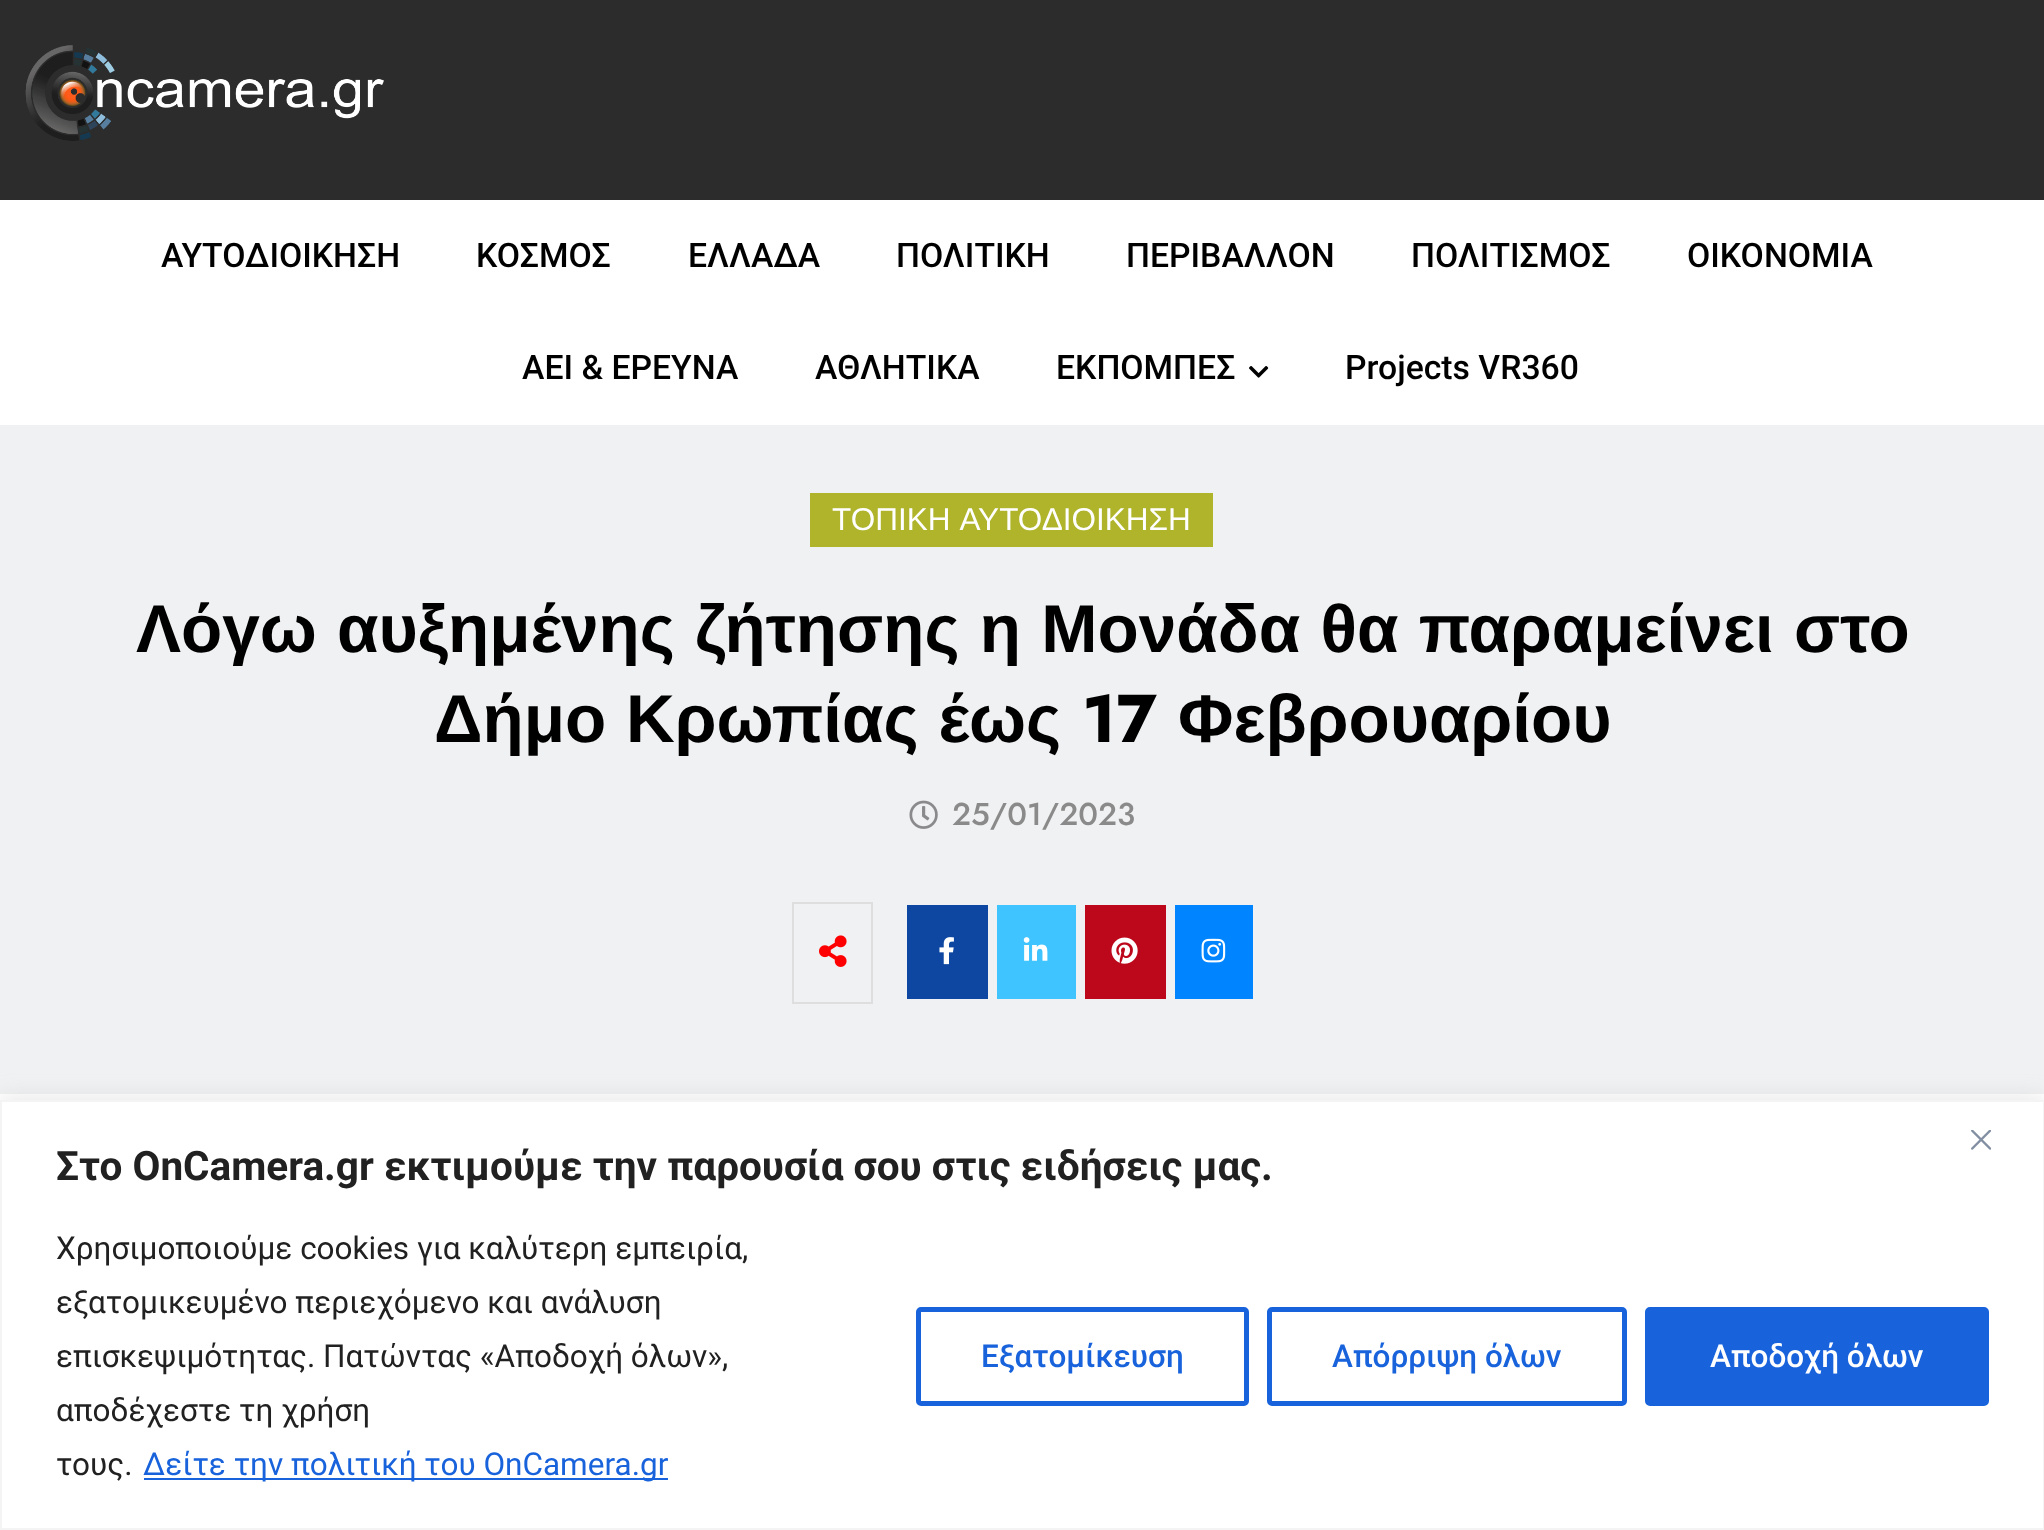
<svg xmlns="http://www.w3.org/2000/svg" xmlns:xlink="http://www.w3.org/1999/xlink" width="2044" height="1530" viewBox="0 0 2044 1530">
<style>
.cls-1{font:500 33.75px Roboto;fill:#000000}
.cls-2{font:31.5px Liberation Sans;fill:#ffffff}
.cls-3{font:bold 67.5px Liberation Sans;fill:#000000}
.cls-4{font:bold 67.5px Jost;fill:#000000}
.cls-5{font:500 31.5px Jost;fill:#8a8a8a}
.cls-6{font:bold 40.5px Roboto;fill:#212121}
.cls-7{font:31.5px Roboto;fill:#212121}
.cls-8{font:31.5px Roboto;fill:#1863dc}
.cls-9{font:500 31.5px Roboto;fill:#1863dc}
.cls-10{font:500 31.5px Roboto;fill:#ffffff}
</style>
<rect width="100%" height="100%" fill="#ffffff"/>
<rect fill="#2c2c2c" x="0" y="0" width="2044" height="200"/>
<image xlink:href="image0.png" x="25" y="45" width="359" height="96"/>
<image xlink:href="image1.png" x="1249" y="366" width="20" height="12"/>
<rect fill="#f0f1f2" x="0" y="425" width="2044" height="669"/>
<rect fill="#afb42b" x="810" y="493" width="403" height="54"/>
<image xlink:href="image2.png" x="909" y="800" width="29" height="29"/>
<rect fill="none" stroke="#dedede" stroke-width="2" x="793" y="903" width="79" height="100"/>
<image xlink:href="image3.png" x="819" y="935" width="28" height="32"/>
<rect fill="#0d47a1" x="907" y="905" width="81" height="94"/>
<image xlink:href="image4.png" x="939" y="937" width="15" height="28"/>
<rect fill="#40c4ff" x="997" y="905" width="79" height="94"/>
<image xlink:href="image5.png" x="1023" y="937" width="25" height="24"/>
<rect fill="#bd081c" x="1085" y="905" width="81" height="94"/>
<image xlink:href="image6.png" x="1111" y="937" width="27" height="27"/>
<rect fill="#0084ff" x="1175" y="905" width="78" height="94"/>
<image xlink:href="image7.png" x="1201" y="938" width="25" height="25"/>
<rect fill="#acabab" fill-opacity="0.3" filter="blur(11px)" x="0" y="1098" width="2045" height="430"/>
<rect fill="#ffffff" stroke="#f4f4f4" stroke-width="2" x="1" y="1101" width="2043" height="428"/>
<image xlink:href="image8.png" x="1971" y="1130" width="20" height="20"/>
<rect fill="#1863dc" x="144" y="1478" width="524" height="2"/>
<rect fill="none" stroke="#1863dc" stroke-width="5" x="918.5" y="1309.5" width="328" height="94" rx="2.5"/>
<rect fill="none" stroke="#1863dc" stroke-width="5" x="1269.5" y="1309.5" width="355" height="94" rx="2.5"/>
<rect fill="#1863dc" stroke="#1863dc" stroke-width="5" x="1647.5" y="1309.5" width="339" height="94" rx="2.5"/>
<text class="cls-1" x="161" y="267">ΑΥΤΟΔΙΟΙΚΗΣΗ</text>
<text class="cls-1" x="476" y="267">ΚΟΣΜΟΣ</text>
<text class="cls-1" x="688" y="267">ΕΛΛΑΔΑ</text>
<text class="cls-1" x="896" y="267">ΠΟΛΙΤΙΚΗ</text>
<text class="cls-1" x="1126" y="267">ΠΕΡΙΒΑΛΛΟΝ</text>
<text class="cls-1" x="1411" y="267">ΠΟΛΙΤΙΣΜΟΣ</text>
<text class="cls-1" x="1687" y="267">ΟΙΚΟΝΟΜΙΑ</text>
<text class="cls-1" x="522" y="379">AEI &amp; ΕΡΕΥΝΑ</text>
<text class="cls-1" x="815" y="379">ΑΘΛΗΤΙΚΑ</text>
<text class="cls-1" x="1056" y="379">ΕΚΠΟΜΠΕΣ</text>
<text class="cls-1" x="1345" y="379">Projects VR360</text>
<text class="cls-2" x="832" y="530" word-spacing="2">ΤΟΠΙΚΗ ΑΥΤΟΔΙΟΙΚΗΣΗ</text>
<text class="cls-3" x="136" y="652" word-spacing="1.5">Λόγω αυξημένης ζήτησης η Μονάδα θα παραμείνει στο</text>
<text class="cls-3" x="434" y="742" word-spacing="1">Δήμο Κρωπίας έως</text>
<text class="cls-4" x="1082" y="742">17</text>
<text class="cls-3" x="1178" y="742">Φεβρουαρίου</text>
<text class="cls-5" x="952" y="825">25/01/2023</text>
<text class="cls-6" x="56" y="1180">Στο OnCamera.gr εκτιμούμε την παρουσία σου στις ειδήσεις μας.</text>
<text class="cls-7"><tspan x="56" y="1259">Χρησιμοποιούμε cookies για καλύτερη εμπειρία,</tspan><tspan x="56" y="1313">εξατομικευμένο περιεχόμενο και ανάλυση</tspan><tspan x="56" y="1367">επισκεψιμότητας. Πατώντας «Αποδοχή όλων»,</tspan><tspan x="56" y="1421">αποδέχεστε τη χρήση</tspan><tspan x="56" y="1475">τους.</tspan></text>
<text class="cls-8" x="143" y="1475">Δείτε την πολιτική του OnCamera.gr</text>
<text class="cls-9" x="981" y="1367">Εξατομίκευση</text>
<text class="cls-9" x="1332" y="1367">Απόρριψη όλων</text>
<text class="cls-10" x="1710" y="1367">Αποδοχή όλων</text>
</svg>
